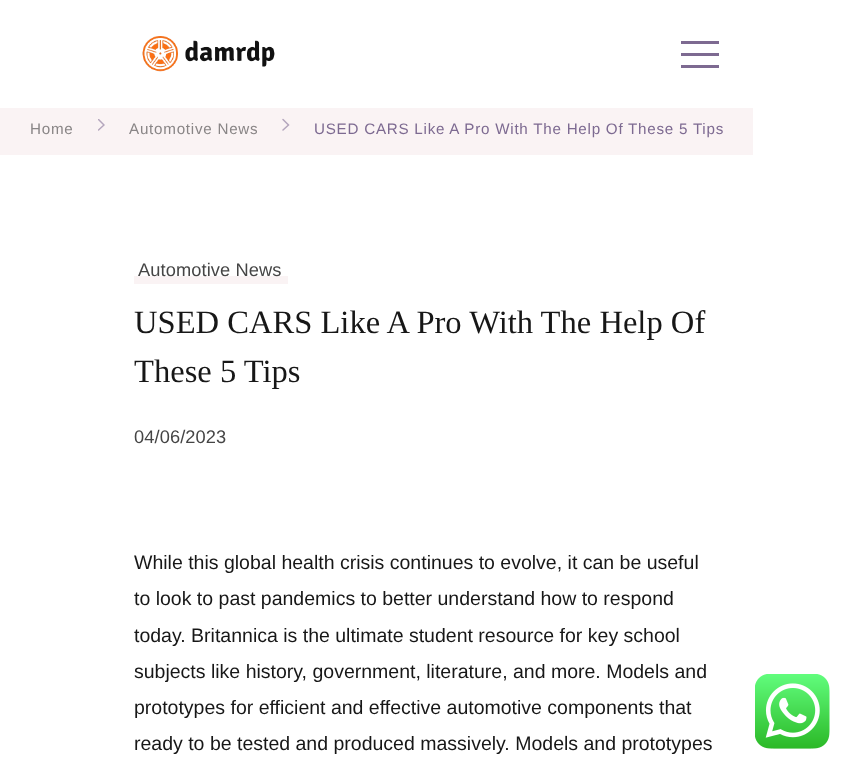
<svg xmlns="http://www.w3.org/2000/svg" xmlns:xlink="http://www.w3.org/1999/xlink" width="851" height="770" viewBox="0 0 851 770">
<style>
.cls-1{font:15.2px Liberation Sans;letter-spacing:0.75px;fill:#898586}
.cls-2{font:15.2px Liberation Sans;letter-spacing:0.75px;fill:#7d6a91}
.cls-3{font:18.25px Liberation Sans;letter-spacing:0.1px;fill:#454545}
.cls-4{font:32.6px Liberation Serif;fill:#171717}
.cls-5{font:19.5px Liberation Sans;fill:#171717}
</style>
<defs>
<clipPath id="clip1"><rect x="98" y="119" width="7" height="12"/></clipPath>
</defs>
<rect width="100%" height="100%" fill="#ffffff"/>
<image xlink:href="image0.png" x="142" y="36" width="133" height="36"/>
<rect fill="#7d6a91" x="681" y="41" width="38" height="3"/>
<rect fill="#7d6a91" x="681" y="53" width="38" height="3"/>
<rect fill="#7d6a91" x="681" y="65" width="38" height="3"/>
<rect fill="#faf3f4" x="0" y="108" width="753" height="47"/>
<g clip-path="url(#clip1)">
<path fill="none" stroke="#b4a6bd" stroke-width="1.5" stroke-linecap="round" d="M98.5 119.5L104 125L98.5 130"/>
</g>
<path fill="none" stroke="#b4a6bd" stroke-width="1.5" stroke-linecap="round" d="M283 119.5L288.5 125L283 130"/>
<image xlink:href="image1.png" x="755" y="674" width="75" height="75"/>
<text class="cls-1" x="30" y="134">Home</text>
<text class="cls-1" x="129" y="134">Automotive News</text>
<text class="cls-2" x="314" y="134">USED CARS Like A Pro With The Help Of These 5 Tips</text>
<text class="cls-3" x="138" y="276">Automotive News</text>
<rect fill="#e8c1c8" fill-opacity="0.2" x="134" y="276" width="154" height="8"/>
<text class="cls-4"><tspan x="134" y="333">USED CARS Like A Pro With The Help Of</tspan><tspan x="134" y="382">These 5 Tips</tspan></text>
<text class="cls-3" x="134" y="443">04/06/2023</text>
<text class="cls-5"><tspan x="134" y="569">While this global health crisis continues to evolve, it can be useful</tspan><tspan x="134" y="605">to look to past pandemics to better understand how to respond</tspan><tspan x="134" y="642">today. Britannica is the ultimate student resource for key school</tspan><tspan x="134" y="678">subjects like history, government, literature, and more. Models and</tspan><tspan x="134" y="714">prototypes for efficient and effective automotive components that</tspan><tspan x="134" y="750">ready to be tested and produced massively. Models and prototypes</tspan></text>
</svg>
